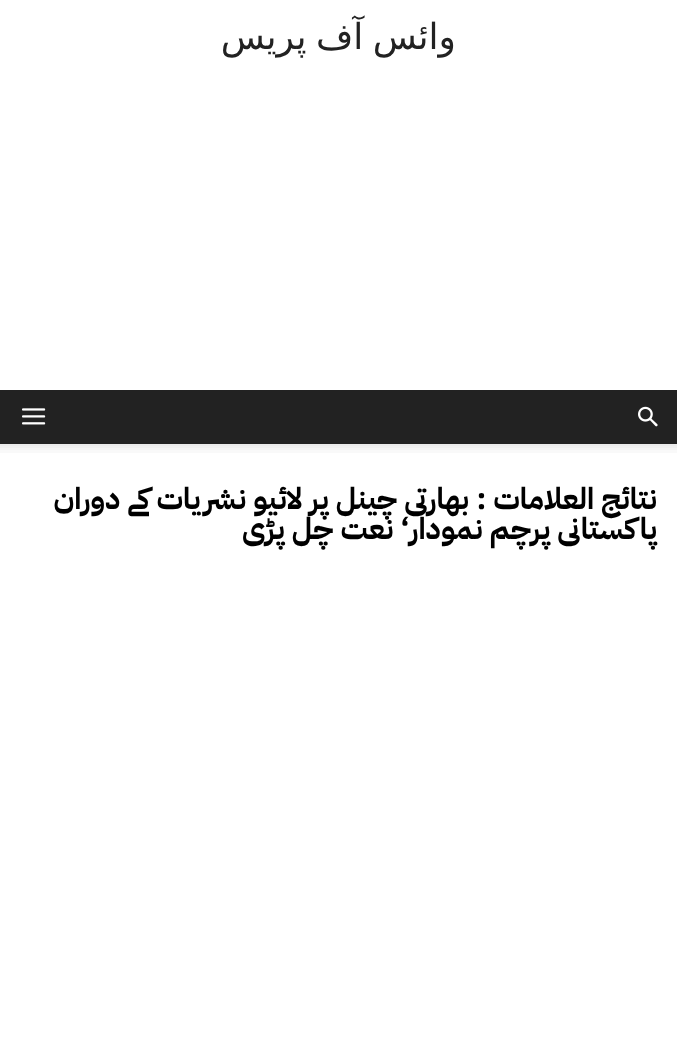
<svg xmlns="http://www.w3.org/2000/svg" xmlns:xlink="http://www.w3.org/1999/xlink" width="677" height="1061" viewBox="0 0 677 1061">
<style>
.cls-1{font:36px DejaVu Sans;direction:rtl;fill:#222222}
.cls-2{font:bold 30px IBM Plex Sans Arabic;direction:rtl;fill:#000000}
</style>
<rect width="100%" height="100%" fill="#ffffff"/>
<rect fill="#222222" x="0" y="390" width="677" height="54"/>
<image xlink:href="image0.png" x="638" y="406" width="20" height="21"/>
<image xlink:href="image1.png" x="22" y="408" width="24" height="17"/>
<image xlink:href="image2.png" x="0" y="444" width="677" height="9"/>
<text class="cls-1" x="456" y="49" word-spacing="-2">وائس آف پریس</text>
<text class="cls-2" x="657" y="509">نتائج العلامات :</text>
<text class="cls-2" x="469" y="509">بھارتی چینل پر لائیو نشریات کے دوران</text>
<text class="cls-2" x="657" y="539">پاکستانی پرچم نمودار‘ نعت چل پڑی</text>
</svg>
